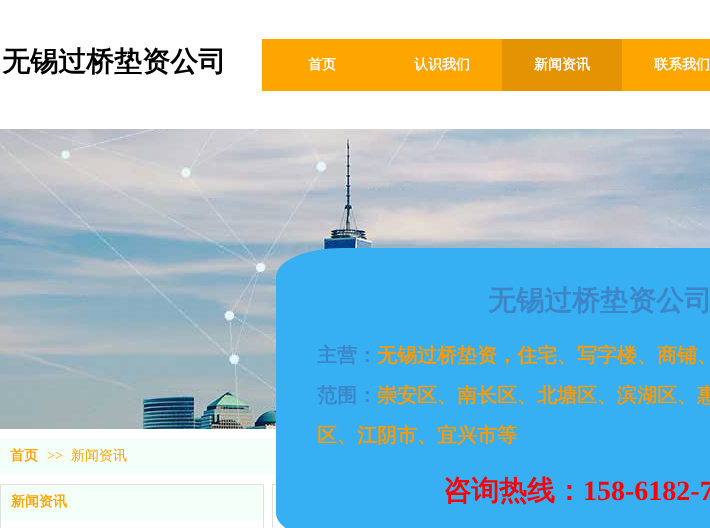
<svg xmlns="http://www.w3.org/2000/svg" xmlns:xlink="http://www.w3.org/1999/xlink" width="710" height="528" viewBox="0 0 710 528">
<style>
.cls-1{font:bold 28px WenQuanYi Zen Hei;fill:#000000}
.cls-2{font:bold 28px WenQuanYi Zen Hei;fill:#3d85c6}
.cls-3{font:bold 20px WenQuanYi Zen Hei;fill:#3d85c6}
.cls-4{font:bold 20px WenQuanYi Zen Hei;fill:#ff9900}
.cls-5{font:bold 28px WenQuanYi Zen Hei;fill:#ff0000}
.cls-6{font:bold 28px Liberation Serif;fill:#ff0000}
.cls-7{font:bold 14px WenQuanYi Zen Hei;fill:#ffffff}
.cls-8{font:bold 14px WenQuanYi Zen Hei;fill:#ffa500}
.cls-9{font:14px Liberation Serif;fill:#ffa500}
.cls-10{font:500 14px WenQuanYi Zen Hei;fill:#ffa500}
</style>
<rect width="100%" height="100%" fill="#ffffff"/>
<image xlink:href="image0.png" x="0" y="129" width="710" height="300"/>
<rect fill="none" stroke="#e0dfdd" x="272.5" y="484.5" width="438" height="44"/>
<rect fill="#f5fffa" x="273" y="485" width="5" height="35"/>
<path fill="#36b0f3" d="M342 248H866C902 248 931 261 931 277V513C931 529 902 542 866 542H342C305 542 276 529 276 513V277C276 261 305 248 342 248Z"/>
<rect fill="#fea500" x="262" y="39" width="448" height="52"/>
<rect fill="#e49303" x="502" y="39" width="120" height="52"/>
<rect fill="#f5fffa" x="0" y="439" width="276" height="35"/>
<rect fill="none" stroke="#e0dfdd" x="0.5" y="484.5" width="263" height="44"/>
<rect fill="#f5fffa" x="1" y="485" width="262" height="35"/>
<text class="cls-1" x="2" y="71">无锡过桥垫资公司</text>
<text class="cls-2" x="488" y="310">无锡过桥垫资公司</text>
<text class="cls-3" x="317" y="362">主营：</text>
<text class="cls-4" x="377" y="362">无锡过桥垫资，住宅、写字楼、商铺、</text>
<text class="cls-3" x="317" y="402">范围：</text>
<text class="cls-4" x="377" y="402">崇安区、南长区、北塘区、滨湖区、惠</text>
<text class="cls-4" x="317" y="442">区、江阴市、宜兴市等</text>
<text class="cls-5" x="443" y="500">咨询热线：</text>
<text class="cls-6" x="583" y="500">158-6182-7</text>
<text class="cls-7" x="308" y="69">首页</text>
<text class="cls-7" x="414" y="69">认识我们</text>
<text class="cls-7" x="534" y="69">新闻资讯</text>
<text class="cls-7" x="654" y="69">联系我们</text>
<text class="cls-8" x="10" y="460">首页</text>
<text class="cls-9" x="47" y="460">&gt;&gt;</text>
<text class="cls-10" x="71" y="460">新闻资讯</text>
<text class="cls-8" x="11" y="506">新闻资讯</text>
</svg>
